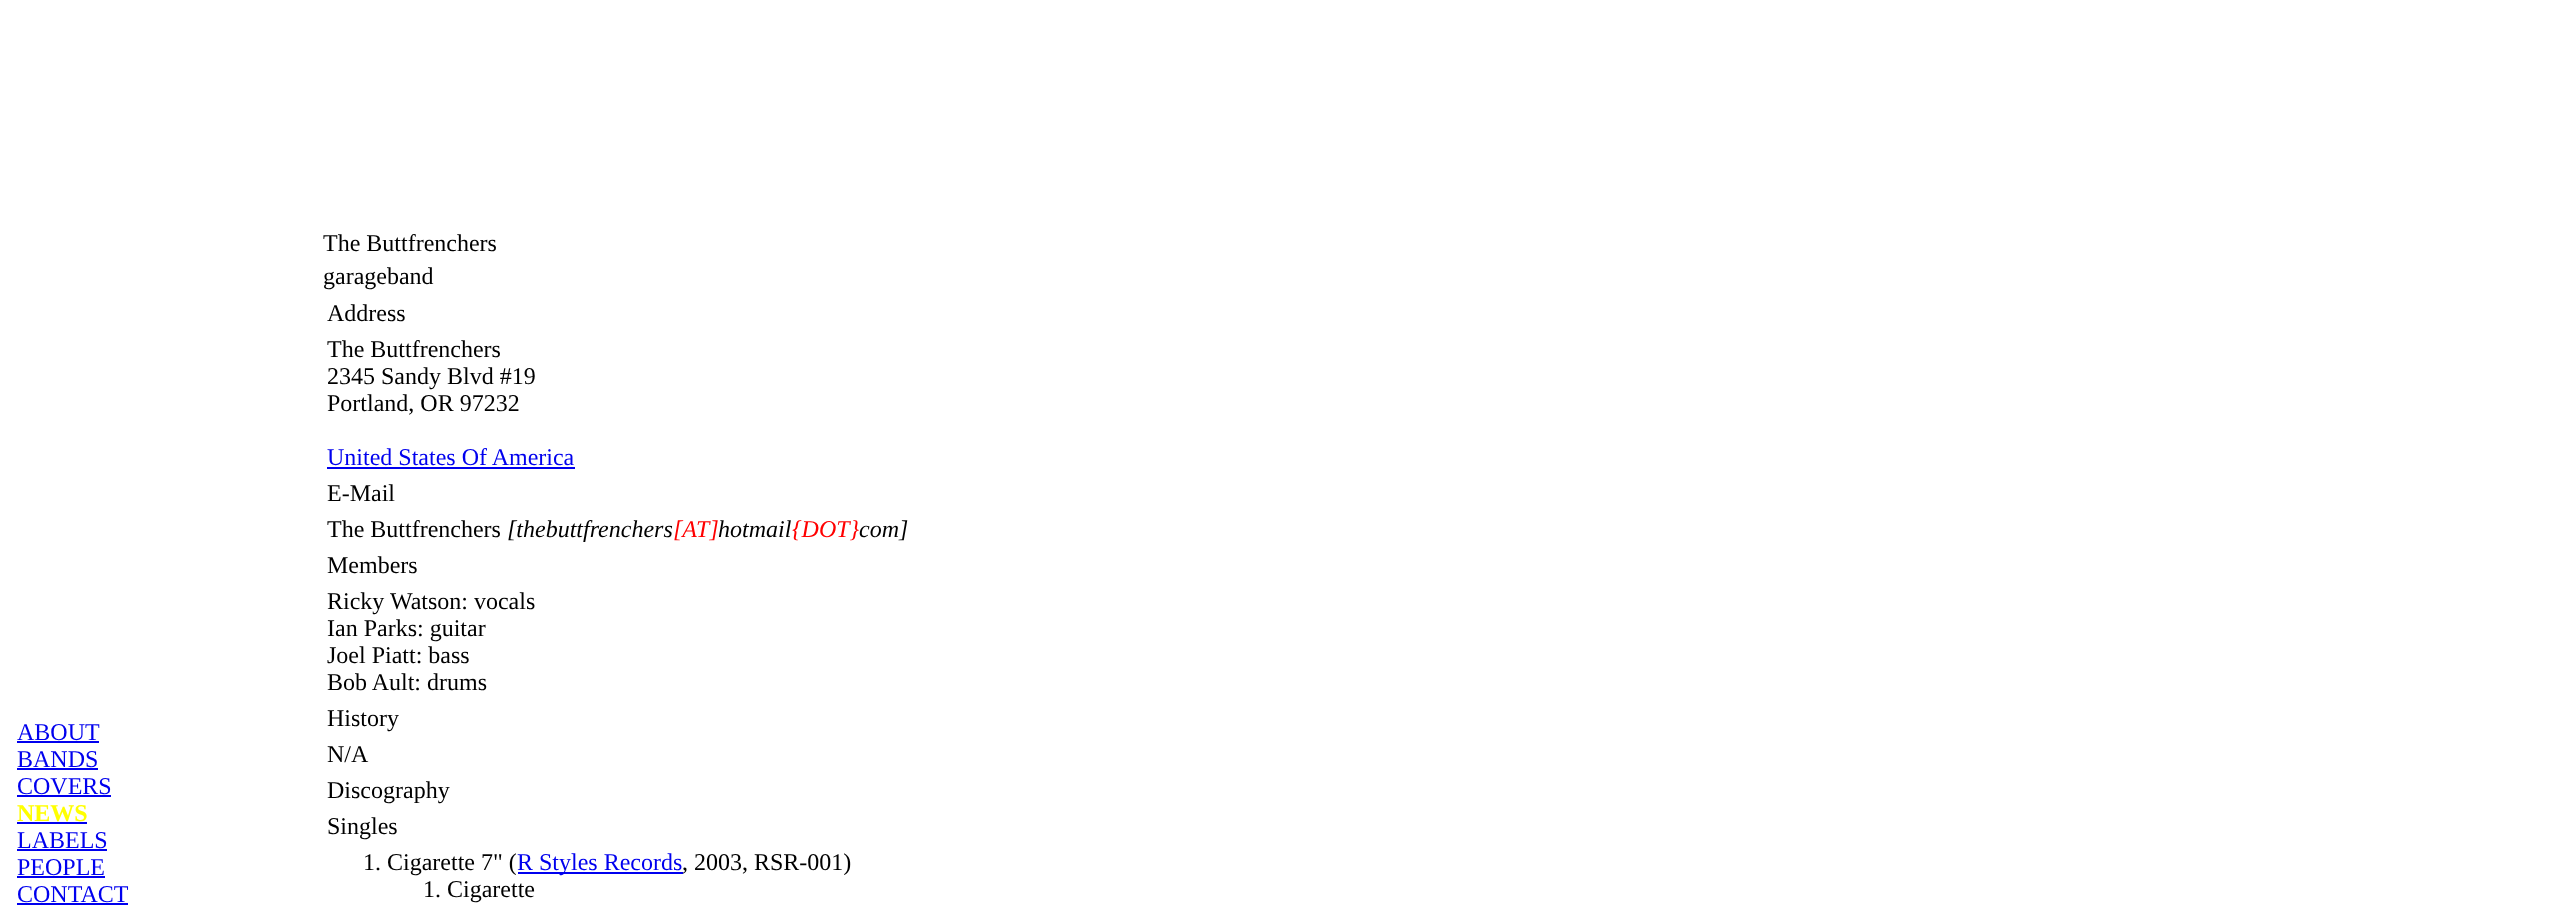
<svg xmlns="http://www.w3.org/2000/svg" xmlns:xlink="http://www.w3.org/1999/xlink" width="2573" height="913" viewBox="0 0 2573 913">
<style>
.cls-1{font:24px Liberation Serif;fill:#000000}
.cls-2{font:24px Liberation Serif;fill:#0000ee}
.cls-3{font:bold 24px Liberation Serif;fill:#ffff00}
.cls-4{font:italic 24px Liberation Serif;fill:#000000}
.cls-5{font:italic 24px Liberation Serif;fill:#ff0000}
</style>
<rect width="100%" height="100%" fill="#ffffff"/>
<rect fill="#0000ee" x="17" y="741" width="82" height="2"/>
<rect fill="#0000ee" x="17" y="768" width="81" height="2"/>
<rect fill="#0000ee" x="17" y="795" width="94" height="2"/>
<rect fill="#0000ee" x="17" y="822" width="70" height="2"/>
<rect fill="#0000ee" x="17" y="849" width="90" height="2"/>
<rect fill="#0000ee" x="17" y="876" width="88" height="2"/>
<rect fill="#0000ee" x="17" y="903" width="111" height="2"/>
<rect fill="#0000ee" x="327" y="467" width="248" height="2"/>
<rect fill="#0000ee" x="518" y="872" width="165" height="2"/>
<text class="cls-1" x="323" y="251">The Buttfrenchers</text>
<text class="cls-2"><tspan x="17" y="740">ABOUT</tspan><tspan x="17" y="767">BANDS</tspan><tspan x="17" y="794">COVERS</tspan></text>
<text class="cls-3" x="17" y="821">NEWS</text>
<text class="cls-2"><tspan x="17" y="848">LABELS</tspan><tspan x="17" y="875">PEOPLE</tspan><tspan x="17" y="902">CONTACT</tspan></text>
<text class="cls-1" x="323" y="284">garageband</text>
<text class="cls-1"><tspan x="327" y="321">Address</tspan><tspan x="327" y="357">The Buttfrenchers</tspan><tspan x="327" y="384">2345 Sandy Blvd #19</tspan><tspan x="327" y="411">Portland, OR 97232</tspan></text>
<text class="cls-2" x="327" y="465">United States Of America</text>
<text class="cls-1"><tspan x="327" y="501">E-Mail</tspan><tspan x="327" y="537">The Buttfrenchers</tspan></text>
<text class="cls-4" x="507" y="537">[thebuttfrenchers</text>
<text class="cls-5" x="673" y="537">[AT]</text>
<text class="cls-4" x="718" y="537">hotmail</text>
<text class="cls-5" x="792" y="537">{DOT}</text>
<text class="cls-4" x="859" y="537">com]</text>
<text class="cls-1"><tspan x="327" y="573">Members</tspan><tspan x="327" y="609">Ricky Watson: vocals</tspan><tspan x="327" y="636">Ian Parks: guitar</tspan><tspan x="327" y="663">Joel Piatt: bass</tspan><tspan x="327" y="690">Bob Ault: drums</tspan><tspan x="327" y="726">History</tspan><tspan x="327" y="762">N/A</tspan><tspan x="327" y="798">Discography</tspan><tspan x="327" y="834">Singles</tspan></text>
<text class="cls-1" x="363" y="870">1. Cigarette 7" (</text>
<text class="cls-2" x="517" y="870">R Styles Records</text>
<text class="cls-1" x="682" y="870">, 2003, RSR-001)</text>
<text class="cls-1" x="423" y="897">1. Cigarette</text>
</svg>
